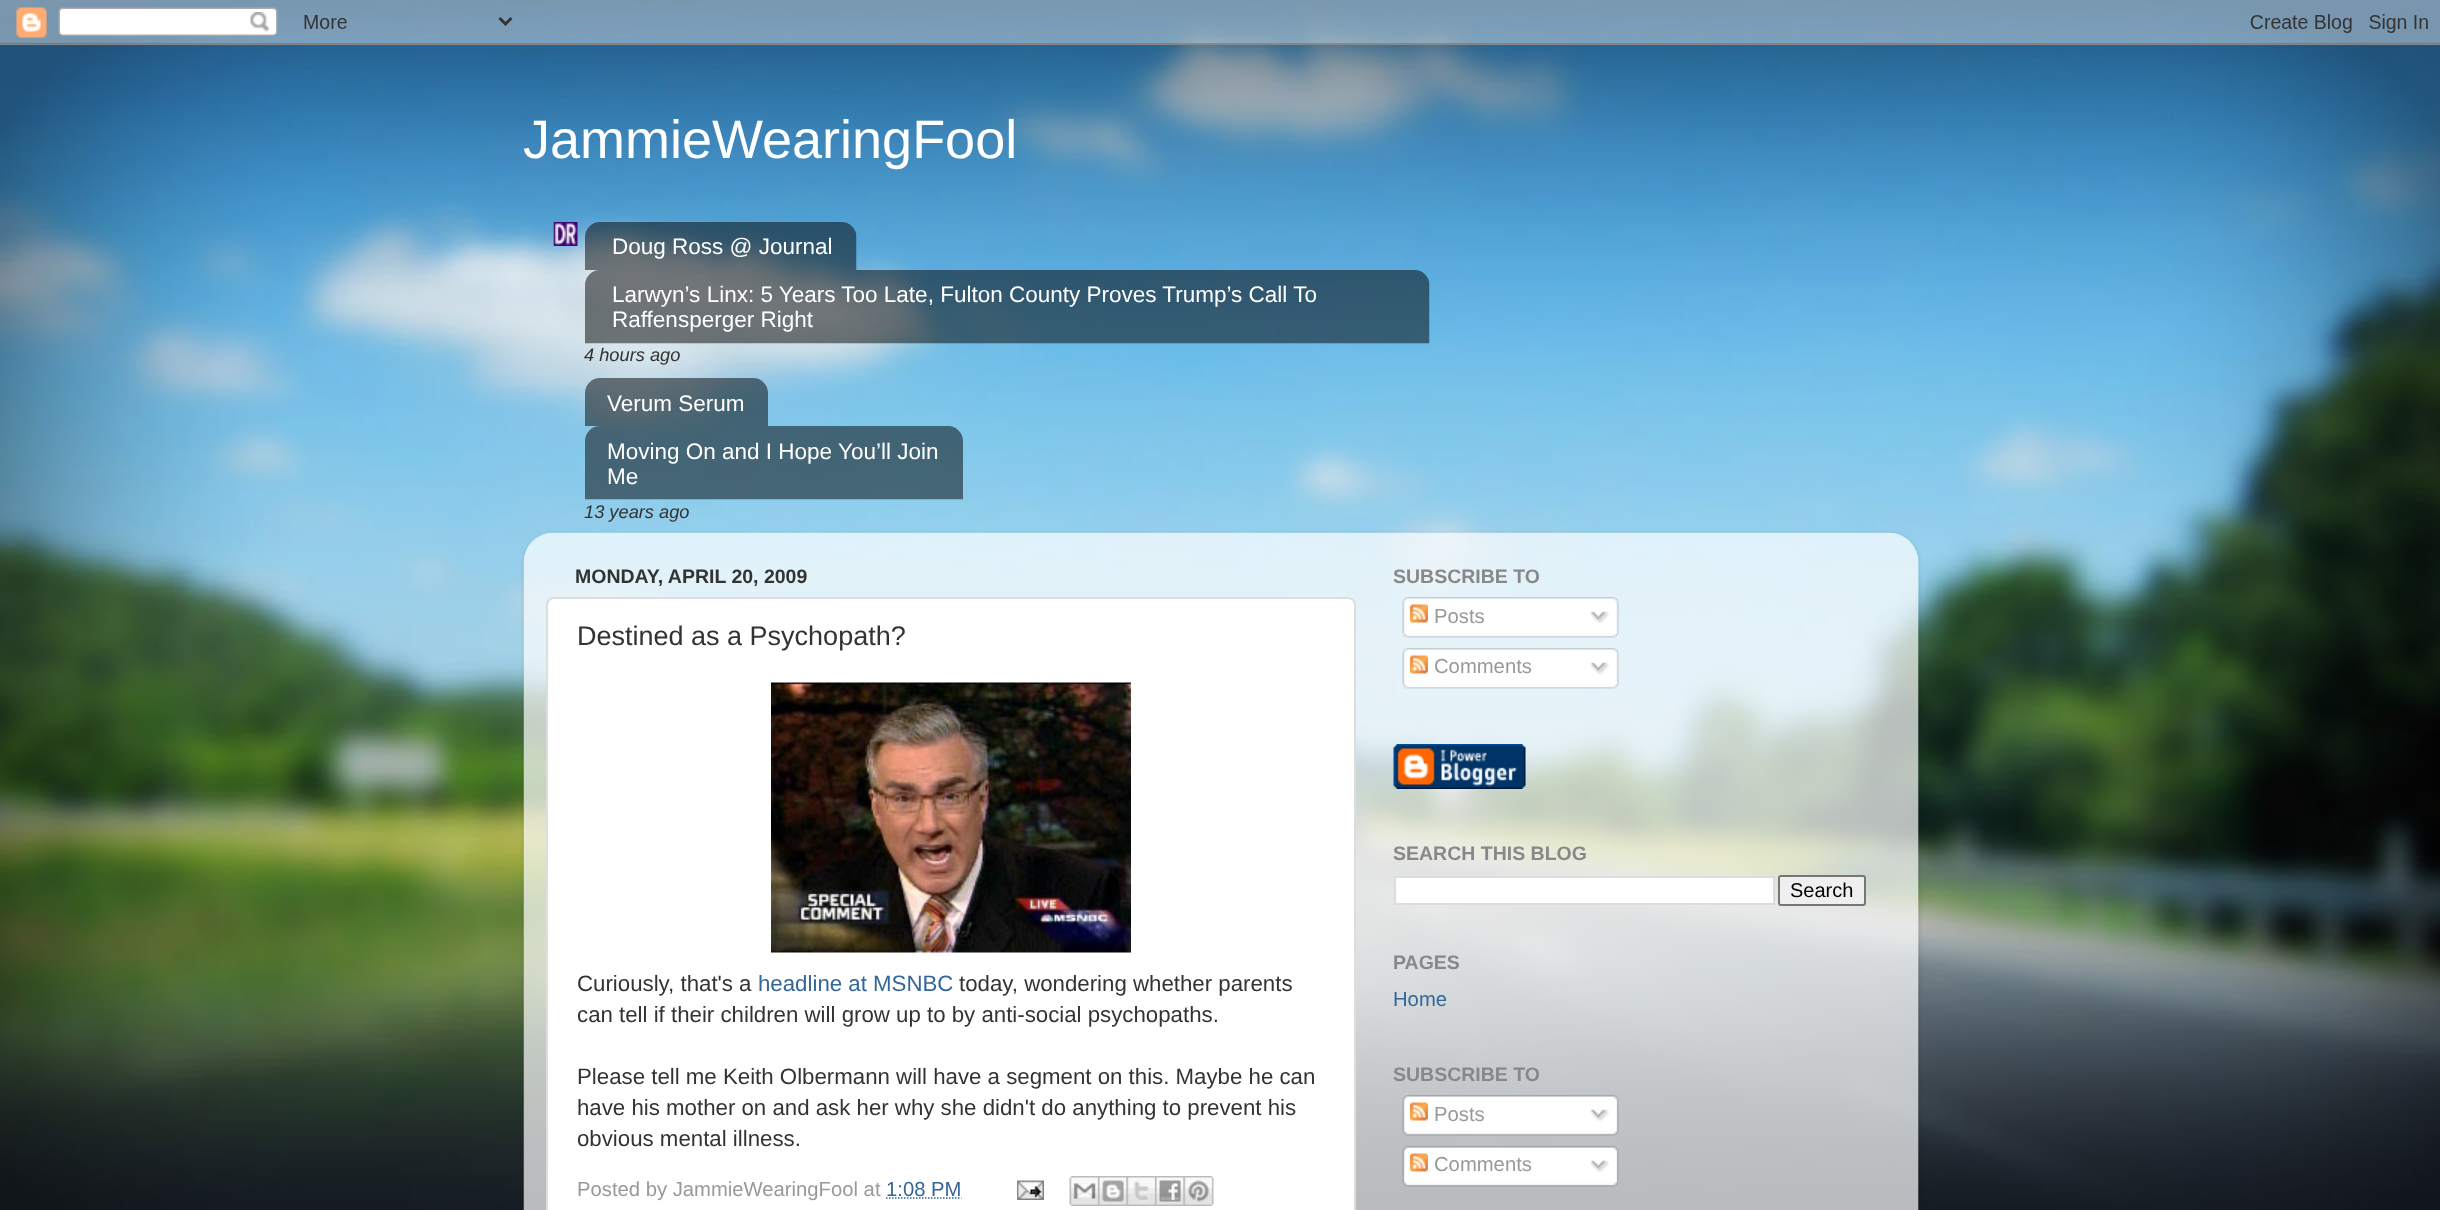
<svg xmlns="http://www.w3.org/2000/svg" xmlns:xlink="http://www.w3.org/1999/xlink" width="2440" height="1210" viewBox="0 0 2440 1210">
<style>
.cls-1{font:54px Liberation Sans;fill:#ffffff}
.cls-2{font:22.5px Liberation Sans;fill:#ffffff}
.cls-3{font:italic 18.25px Liberation Sans;fill:#333333}
.cls-4{font:bold 19.5px Liberation Sans;fill:#333333}
.cls-5{font:27px Liberation Sans;fill:#333333}
.cls-6{font:22.25px Liberation Sans;fill:#333333}
.cls-7{font:22.25px Liberation Sans;fill:#336699}
.cls-8{font:20.25px Liberation Sans;fill:#999999}
.cls-9{font:20.25px Liberation Sans;fill:#336699}
.cls-10{font:bold 19.5px Liberation Sans;fill:#888888}
.cls-11{font:20px Liberation Sans;fill:#000000}
</style>
<defs>
<clipPath id="clip1"><path d="M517 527H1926V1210H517ZM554 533H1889C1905.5 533 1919 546.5 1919 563V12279H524V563C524 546.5 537.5 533 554 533Z" clip-rule="evenodd"/></clipPath>
</defs>
<rect width="100%" height="100%" fill="#ffffff"/>
<image xlink:href="image0.png" x="0" y="0" width="2440" height="1210"/>
<image xlink:href="image1.png" x="0" y="0" width="2440" height="45"/>
<image xlink:href="image2.png" x="553" y="222" width="25" height="24"/>
<image xlink:href="image3.png" x="585" y="222" width="272" height="48"/>
<image xlink:href="image4.png" x="585" y="270" width="845" height="74"/>
<image xlink:href="image5.png" x="585" y="378" width="183" height="48"/>
<image xlink:href="image6.png" x="585" y="426" width="378" height="74"/>
<g clip-path="url(#clip1)">
<rect fill="#000000" fill-opacity="0.15" filter="blur(2px)" x="524" y="534" width="1395" height="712" rx="30"/>
</g>
<image xlink:href="image7.png" x="523" y="532" width="1396" height="678"/>
<rect fill="#ffffff" stroke="#dddddd" stroke-width="2" x="547" y="598" width="808" height="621" rx="7"/>
<image xlink:href="image8.png" x="771" y="682" width="360" height="271"/>
<path fill="none" stroke="#336699" stroke-width="1.5" stroke-dasharray="1.5 1.5" d="M886 1198H961.5"/>
<image xlink:href="image9.png" x="1017" y="1180" width="27" height="20"/>
<image xlink:href="image10.png" x="1069" y="1176" width="29" height="30"/>
<image xlink:href="image11.png" x="1098" y="1176" width="29" height="30"/>
<image xlink:href="image12.png" x="1126" y="1176" width="29" height="30"/>
<image xlink:href="image13.png" x="1155" y="1176" width="29" height="30"/>
<image xlink:href="image14.png" x="1183" y="1176" width="31" height="30"/>
<image xlink:href="image15.png" x="1402" y="597" width="217" height="36"/>
<image xlink:href="image16.png" x="1410" y="604" width="18" height="19"/>
<image xlink:href="image17.png" x="1590" y="611" width="20" height="13"/>
<image xlink:href="image18.png" x="1402" y="633" width="217" height="5"/>
<image xlink:href="image19.png" x="1402" y="648" width="217" height="36"/>
<image xlink:href="image16.png" x="1410" y="655" width="18" height="19"/>
<image xlink:href="image17.png" x="1590" y="662" width="20" height="13"/>
<image xlink:href="image20.png" x="1402" y="684" width="217" height="5"/>
<image xlink:href="image21.png" x="1393" y="744" width="133" height="45"/>
<rect fill="#ffffff" stroke="#dddddd" stroke-width="2" x="1395" y="877" width="379" height="27"/>
<rect fill="#efefef" stroke="#767676" stroke-width="2" x="1779" y="876" width="86" height="29" rx="2"/>
<image xlink:href="image22.png" x="1402" y="1095" width="217" height="36"/>
<image xlink:href="image16.png" x="1410" y="1102" width="18" height="19"/>
<image xlink:href="image17.png" x="1590" y="1109" width="20" height="13"/>
<image xlink:href="image23.png" x="1402" y="1131" width="217" height="5"/>
<image xlink:href="image24.png" x="1402" y="1146" width="217" height="36"/>
<image xlink:href="image16.png" x="1410" y="1153" width="18" height="19"/>
<image xlink:href="image17.png" x="1590" y="1160" width="20" height="13"/>
<image xlink:href="image25.png" x="1402" y="1182" width="217" height="5"/>
<text class="cls-1" x="523" y="158">JammieWearingFool</text>
<text class="cls-2" x="612" y="254">Doug Ross @ Journal</text>
<text class="cls-2"><tspan x="612" y="302">Larwyn’s Linx: 5 Years Too Late, Fulton County Proves Trump’s Call To</tspan><tspan x="612" y="327">Raffensperger Right</tspan></text>
<text class="cls-3" x="584" y="361">4 hours ago</text>
<text class="cls-2" x="607" y="411">Verum Serum</text>
<text class="cls-2"><tspan x="607" y="459">Moving On and I Hope You’ll Join</tspan><tspan x="607" y="484">Me</tspan></text>
<text class="cls-3" x="584" y="518">13 years ago</text>
<text class="cls-4" x="575" y="583">MONDAY, APRIL 20, 2009</text>
<text class="cls-5" x="577" y="645">Destined as a Psychopath?</text>
<text class="cls-6" x="577" y="991">Curiously, that's a</text>
<text class="cls-7" x="758" y="991">headline at MSNBC</text>
<text class="cls-6" x="959" y="991">today, wondering whether parents</text>
<text class="cls-6" x="577" y="1022">can tell if their children will grow up to by anti-social psychopaths.</text>
<text class="cls-6"><tspan x="577" y="1084">Please tell me Keith Olbermann will have a segment on this. Maybe he can</tspan><tspan x="577" y="1115">have his mother on and ask her why she didn't do anything to prevent his</tspan><tspan x="577" y="1146">obvious mental illness.</tspan></text>
<text class="cls-8" x="577" y="1196">Posted by JammieWearingFool at</text>
<text class="cls-9" x="886" y="1196">1:08 PM</text>
<text class="cls-10" x="1393" y="583">SUBSCRIBE TO</text>
<text class="cls-8" x="1434" y="623">Posts</text>
<text class="cls-8" x="1434" y="673">Comments</text>
<text class="cls-10" x="1393" y="860">SEARCH THIS BLOG</text>
<text class="cls-11" x="1790" y="897">Search</text>
<text class="cls-10" x="1393" y="969">PAGES</text>
<text class="cls-9" x="1393" y="1006">Home</text>
<text class="cls-10" x="1393" y="1081">SUBSCRIBE TO</text>
<text class="cls-8" x="1434" y="1121">Posts</text>
<text class="cls-8" x="1434" y="1171">Comments</text>
</svg>
